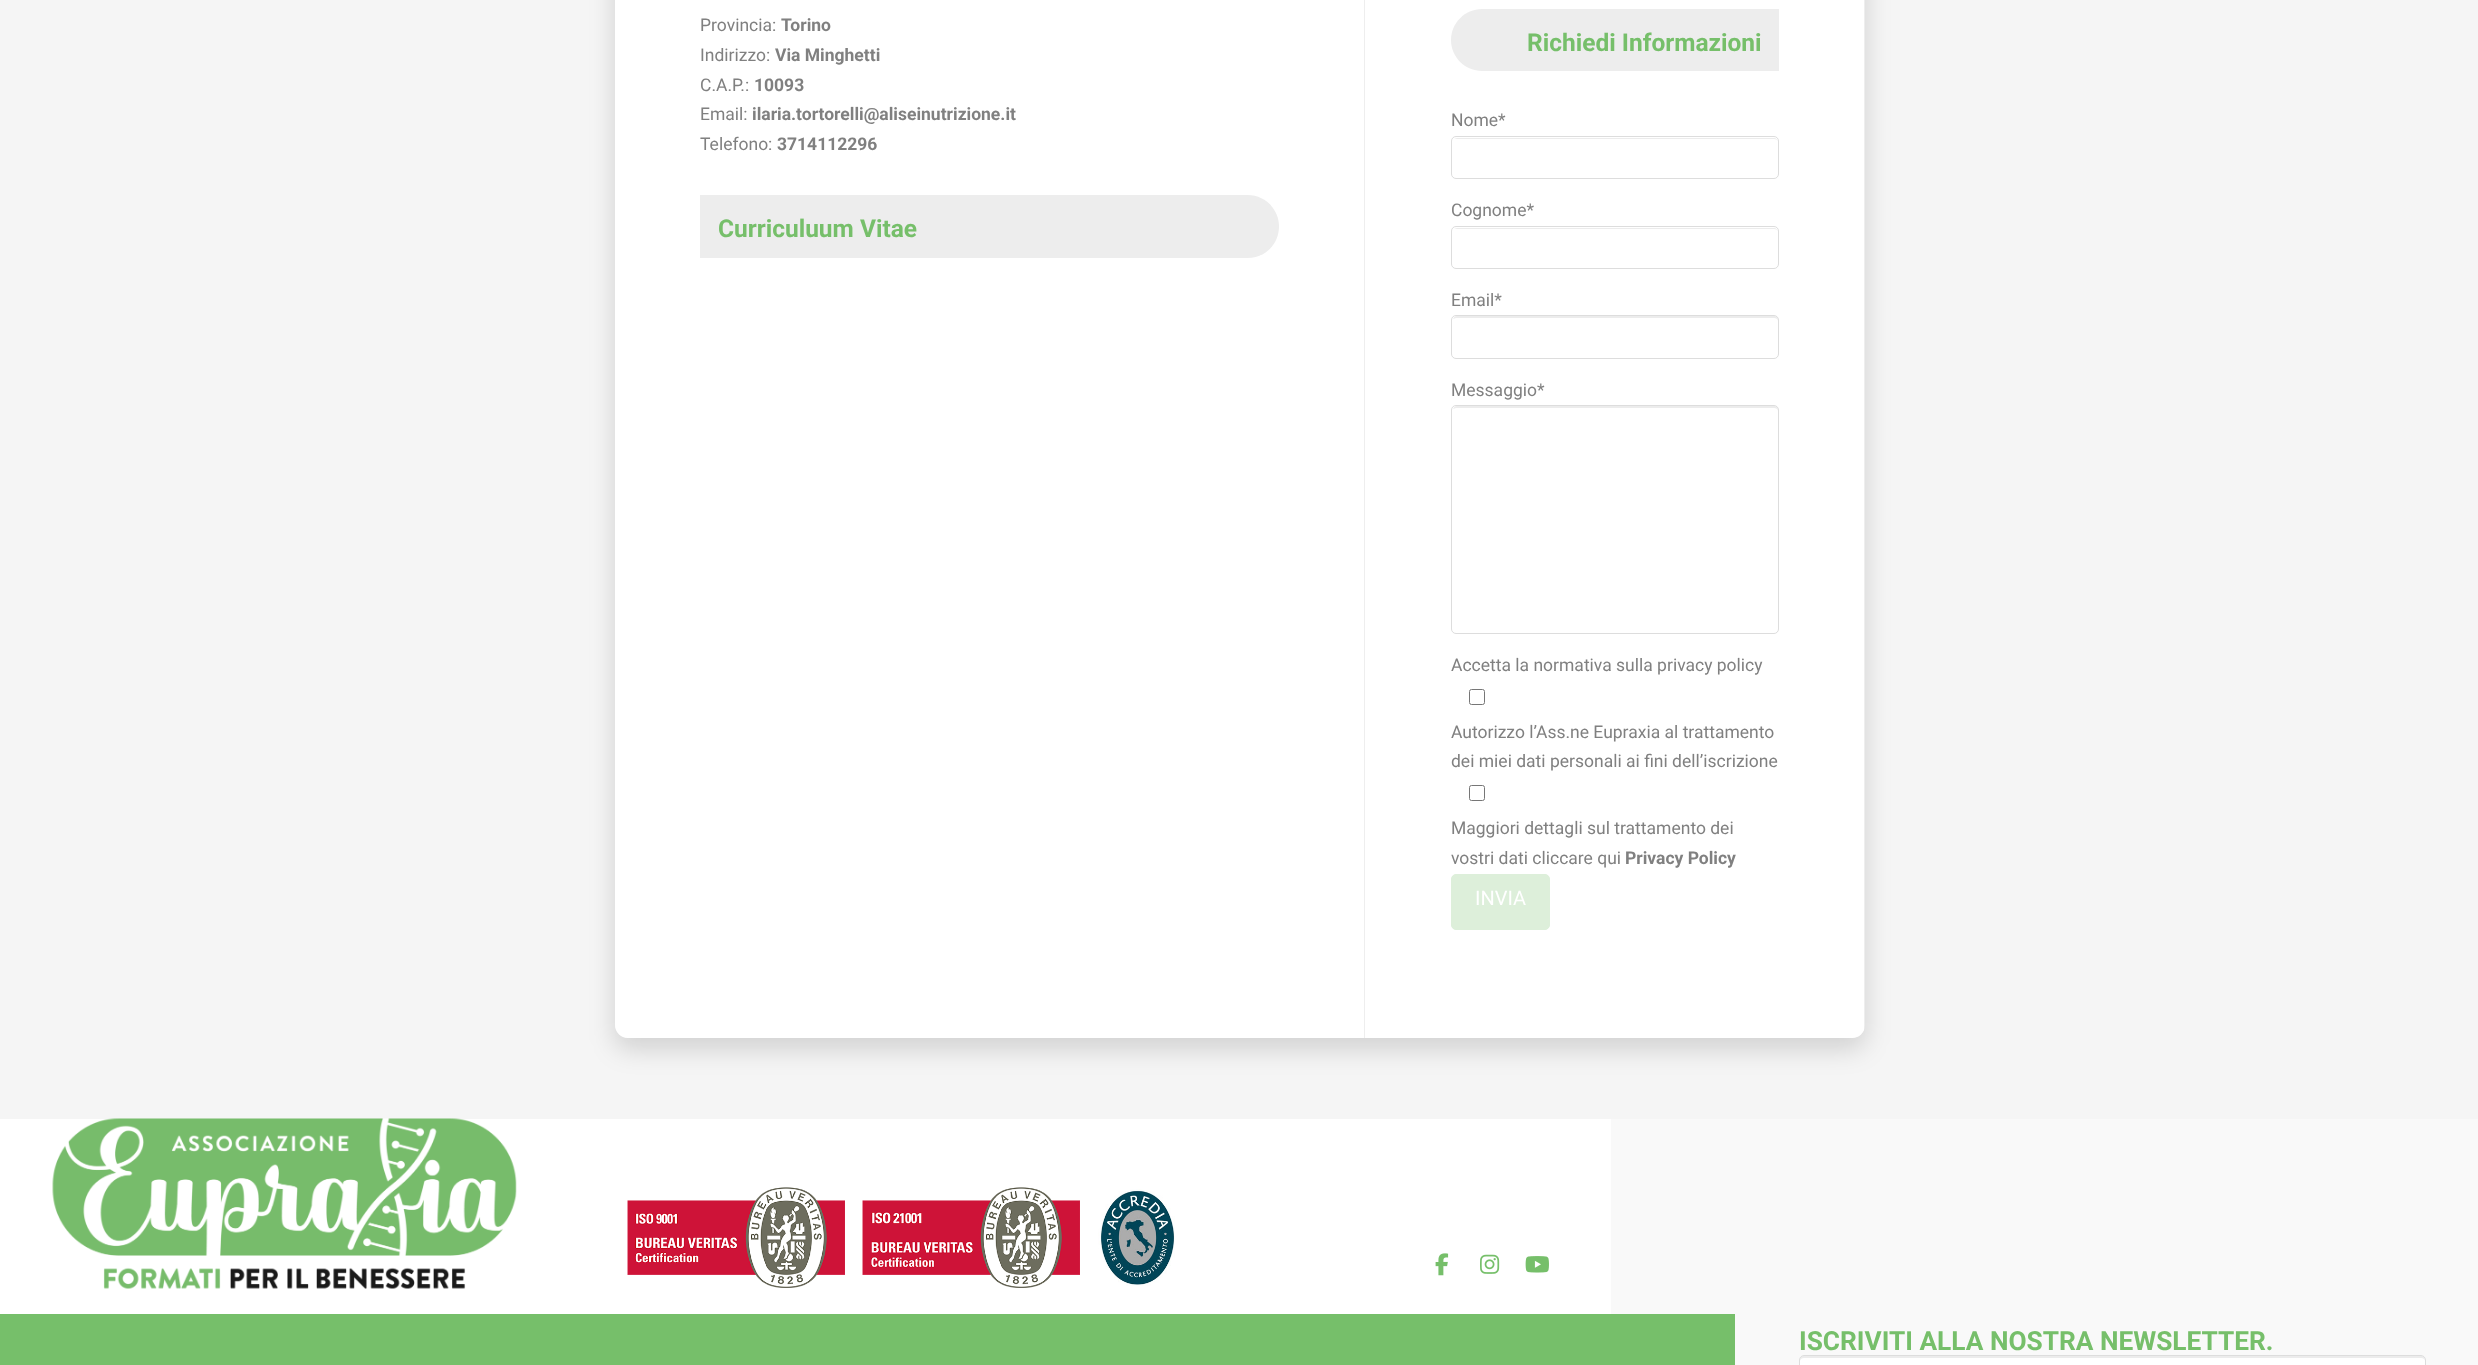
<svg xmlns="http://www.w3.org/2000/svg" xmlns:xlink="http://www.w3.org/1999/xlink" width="2478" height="1365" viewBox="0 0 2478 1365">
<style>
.cls-1{font:17.5px Roboto;fill:#808080}
.cls-2{font:bold 17.5px Roboto;fill:#808080}
.cls-3{font:bold 24.5px Roboto;fill:#76bf6a}
.cls-4{font:20px Roboto;fill:#ffffff}
.cls-5{font:bold 26.25px Roboto;fill:#76bf6a}
</style>
<defs>
<clipPath id="clip1"><rect x="615" y="-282" width="1250" height="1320" rx="13"/></clipPath>
</defs>
<rect width="100%" height="100%" fill="#ffffff"/>
<rect fill="#f5f5f5" x="0" y="0" width="2478" height="1119"/>
<rect fill="#000000" fill-opacity="0.15" filter="blur(13px)" x="615" y="-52" width="1250" height="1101" rx="13"/>
<rect fill="#eeeeee" x="615" y="-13" width="1250" height="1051" rx="13"/>
<path fill="#ffffff" d="M628-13H1364V1038H628C621 1038 615 1032 615 1025V0C615-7 621-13 628-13Z"/>
<path fill="#ededed" d="M700 195H1247.5C1265 195 1279 209 1279 226.5C1279 244 1265 258 1247.5 258H700Z"/>
<g clip-path="url(#clip1)">
<rect fill="#ffffff" x="1365" y="0" width="499" height="1038"/>
</g>
<path fill="#ededed" d="M1482 9H1779V71H1482C1465 71 1451 57 1451 40C1451 23 1465 9 1482 9Z"/>
<path fill="#ececec" d="M1456 139H1774C1776 139 1778 140 1778 142C1778 140 1776 138 1774 138H1457C1456 138 1455 139 1454 139Z"/>
<rect fill="none" stroke="#dddddd" x="1451.5" y="136.5" width="327" height="42" rx="4.5"/>
<path fill="#ececec" d="M1456 229H1774C1776 229 1778 230 1778 232C1778 230 1776 228 1774 228H1457C1456 228 1455 229 1454 229Z"/>
<rect fill="none" stroke="#dddddd" x="1451.5" y="226.5" width="327" height="42" rx="4.5"/>
<path fill="#ececec" d="M1456 318H1774C1776 318 1778 319 1778 321V320C1778 318 1776 316 1774 316H1457C1455 316 1454 317 1453 319Z"/>
<rect fill="none" stroke="#dddddd" x="1451.5" y="315.5" width="327" height="43" rx="4.5"/>
<path fill="#ececec" d="M1456 408H1774C1776 408 1778 409 1778 411V410C1778 408 1776 406 1774 406H1457C1455 406 1454 407 1453 409Z"/>
<rect fill="none" stroke="#dddddd" x="1451.5" y="405.5" width="327" height="228" rx="4.5"/>
<rect fill="none" stroke="#767676" x="1469.5" y="689.5" width="15" height="15" rx="2"/>
<rect fill="none" stroke="#767676" x="1469.5" y="785.5" width="15" height="15" rx="2"/>
<rect fill="#ddefda" stroke="#ddefda" x="1451.5" y="874.5" width="98" height="55" rx="4.5"/>
<image xlink:href="image0.png" x="52" y="1118" width="465" height="171"/>
<image xlink:href="image1.png" x="627" y="1187" width="218" height="101"/>
<image xlink:href="image2.png" x="862" y="1187" width="218" height="101"/>
<image xlink:href="image3.png" x="1098" y="1189" width="77" height="97"/>
<image xlink:href="image4.png" x="1435" y="1253" width="14" height="23"/>
<image xlink:href="image5.png" x="1480" y="1254" width="20" height="20"/>
<image xlink:href="image6.png" x="1525" y="1256" width="24" height="17"/>
<rect fill="#f9f9f9" x="1611" y="1119" width="867" height="246"/>
<rect fill="#76bf6a" x="0" y="1314" width="1735" height="51"/>
<rect fill="#ffffff" x="1799" y="1355" width="627" height="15" rx="5"/>
<path fill="#ececec" d="M1804 1358H2421C2423 1358 2425 1359 2425 1361C2425 1358 2424 1356 2421 1356H1804C1801 1356 1800 1358 1800 1361C1800 1359 1802 1358 1804 1358Z"/>
<rect fill="none" stroke="#dddddd" x="1799.5" y="1355.5" width="626" height="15" rx="4.5"/>
<text class="cls-1" x="700" y="31">Provincia:</text>
<text class="cls-2" x="781" y="31">Torino</text>
<text class="cls-1" x="700" y="61">Indirizzo:</text>
<text class="cls-2" x="775" y="61">Via Minghetti</text>
<text class="cls-1" x="700" y="91">C.A.P.:</text>
<text class="cls-2" x="754" y="91">10093</text>
<text class="cls-1" x="700" y="120">Email:</text>
<text class="cls-2" x="752" y="120">ilaria.tortorelli@aliseinutrizione.it</text>
<text class="cls-1" x="700" y="150">Telefono:</text>
<text class="cls-2" x="777" y="150">3714112296</text>
<text class="cls-3" x="718" y="237">Curriculuum Vitae</text>
<text class="cls-3" x="1527" y="51">Richiedi Informazioni</text>
<text class="cls-1" x="1451" y="126">Nome*</text>
<text class="cls-1" x="1451" y="216">Cognome*</text>
<text class="cls-1" x="1451" y="306">Email*</text>
<text class="cls-1" x="1451" y="396">Messaggio*</text>
<text class="cls-1" x="1451" y="671">Accetta la normativa sulla privacy policy</text>
<text class="cls-1"><tspan x="1451" y="738">Autorizzo l’Ass.ne Eupraxia al trattamento</tspan><tspan x="1451" y="767">dei miei dati personali ai fini dell’iscrizione</tspan></text>
<text class="cls-1"><tspan x="1451" y="834">Maggiori dettagli sul trattamento dei</tspan><tspan x="1451" y="864">vostri dati cliccare qui</tspan></text>
<text class="cls-2" x="1625" y="864">Privacy Policy</text>
<text class="cls-4" x="1475" y="905">INVIA</text>
<text class="cls-5" x="1799" y="1350">ISCRIVITI ALLA NOSTRA NEWSLETTER.</text>
</svg>
